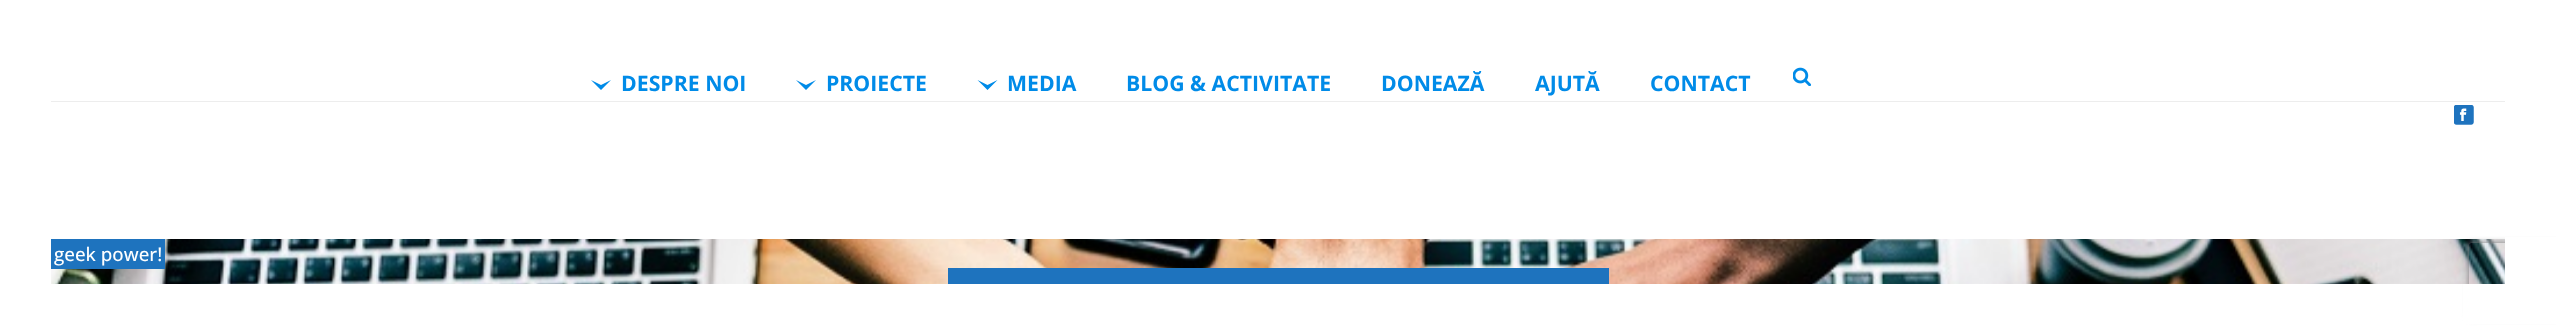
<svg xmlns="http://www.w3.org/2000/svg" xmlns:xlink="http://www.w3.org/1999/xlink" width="2556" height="334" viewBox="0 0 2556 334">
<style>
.cls-1{font:bold 21.25px Open Sans;fill:#008be8}
.cls-2{font:500 18.75px Open Sans;fill:#ffffff}
</style>
<defs>
<clipPath id="clip1"><path d="M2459 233H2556V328H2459ZM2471.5 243H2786.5C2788 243 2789 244 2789 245.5V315.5C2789 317 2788 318 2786.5 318H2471.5C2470 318 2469 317 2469 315.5V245.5C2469 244 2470 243 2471.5 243Z" clip-rule="evenodd"/></clipPath>
</defs>
<rect width="100%" height="100%" fill="#ffffff"/>
<path fill="#008be8" d="M591 80L601 90L611 80L601 85Z"/>
<path fill="#008be8" d="M796 80L806 90L816 80L806 85Z"/>
<path fill="#008be8" d="M977.5 80L987.5 90L997.5 80L987.5 85Z"/>
<image xlink:href="image0.png" x="1793" y="67" width="18" height="19"/>
<rect fill="#ededed" x="51" y="101" width="2454" height="1"/>
<image xlink:href="image1.png" x="2454" y="105" width="20" height="20"/>
<image xlink:href="image2.png" x="51" y="239" width="2454" height="45"/>
<rect fill="#1e73be" x="51" y="239" width="114" height="30"/>
<rect fill="#1e73be" x="948" y="268" width="661" height="16"/>
<g clip-path="url(#clip1)">
<rect fill="#808080" filter="blur(3px)" x="2469" y="243" width="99" height="75" rx="2.5"/>
</g>
<rect fill="#ffffff" x="2505" y="237" width="51" height="6"/>
<rect fill="#ffffff" x="2463" y="284" width="93" height="40"/>
<text class="cls-1" x="621" y="91">DESPRE NOI</text>
<text class="cls-1" x="826" y="91">PROIECTE</text>
<text class="cls-1" x="1007" y="91">MEDIA</text>
<text class="cls-1" x="1126" y="91">BLOG &amp; ACTIVITATE</text>
<text class="cls-1" x="1381" y="91">DONEAZĂ</text>
<text class="cls-1" x="1535" y="91">AJUTĂ</text>
<text class="cls-1" x="1650" y="91">CONTACT</text>
<text class="cls-2" x="54" y="261">geek power!</text>
</svg>
